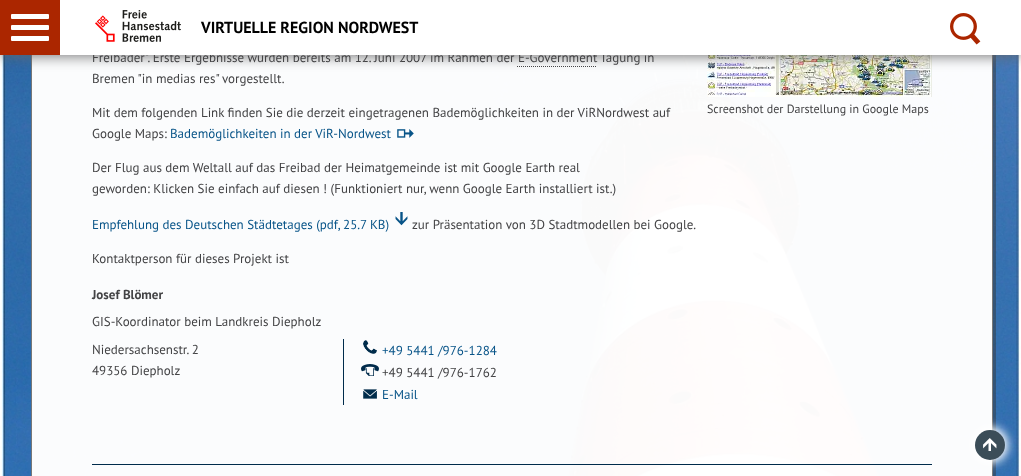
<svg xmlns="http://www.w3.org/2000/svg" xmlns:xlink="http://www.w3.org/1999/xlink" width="1021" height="476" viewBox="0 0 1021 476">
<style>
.cls-1{font:13px PT Sans;fill:#434345}
.cls-2{font:bold 16px PT Sans;fill:#000000}
.cls-3{font:13px PT Sans;fill:#085488}
.cls-4{font:12px PT Sans;fill:#434345}
.cls-5{font:bold 13px PT Sans;fill:#434345}
</style>
<defs>
<clipPath id="clip1"><rect x="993" y="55" width="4" height="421"/></clipPath>
</defs>
<rect width="100%" height="100%" fill="#ffffff"/>
<image xlink:href="image0.png" x="0" y="55" width="1021" height="421"/>
<g clip-path="url(#clip1)">
<rect fill="#323232" fill-opacity="0.45" filter="blur(0.5px)" x="34" y="-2" width="962" height="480"/>
</g>
<rect fill="none" stroke="#777777" x="31.5" y="-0.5" width="961" height="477"/>
<path fill="none" stroke="#434345" stroke-dasharray="1 1" d="M517 66.5H597"/>
<image xlink:href="image4.png" x="707" y="55" width="225" height="42"/>
<rect fill="#646464" fill-opacity="0.8" filter="blur(6.5px)" x="0" y="2" width="1021" height="55"/>
<rect fill="#ab2600" x="0" y="0" width="60" height="55"/>
<rect fill="#ffffff" x="11" y="14" width="38" height="5" rx="1"/>
<rect fill="#ffffff" x="11" y="25" width="38" height="5" rx="1"/>
<rect fill="#ffffff" x="11" y="36" width="38" height="5" rx="1"/>
<image xlink:href="image3.png" x="397" y="129" width="17" height="9"/>
<image xlink:href="image5.png" x="395" y="212" width="13" height="14"/>
<rect fill="#002b4b" x="343" y="339" width="1" height="66"/>
<image xlink:href="image6.png" x="363" y="340" width="14" height="14"/>
<image xlink:href="image7.png" x="361" y="364" width="18" height="12"/>
<image xlink:href="image8.png" x="363" y="389" width="14" height="10"/>
<rect fill="#002b4b" x="92" y="464" width="840" height="1"/>
<rect fill="#ffffff" filter="blur(5px)" x="972" y="427" width="36" height="36" rx="18"/>
<circle fill="#3b4d58" cx="990" cy="445" r="15"/>
<image xlink:href="image9.png" x="983" y="438" width="14" height="13"/>
<text class="cls-1" x="92" y="62">Freibäder". Erste Ergebnisse wurden bereits am 12. Juni 2007 im Rahmen der E-Government</text>
<text class="cls-1" x="600" y="62">Tagung in</text>
<rect fill="#ffffff" x="60" y="0" width="961" height="55"/>
<image xlink:href="image2.png" x="950" y="13" width="31" height="32"/>
<text class="cls-2" x="201" y="33">VIRTUELLE REGION NORDWEST</text>
<image xlink:href="image1.png" x="95" y="10" width="86" height="32"/>
<text class="cls-1" x="92" y="83">Bremen "in medias res" vorgestellt.</text>
<text class="cls-1"><tspan x="92" y="117">Mit dem folgenden Link finden Sie die derzeit eingetragenen Bademöglichkeiten in der ViRNordwest auf</tspan><tspan x="92" y="138">Google Maps:</tspan></text>
<text class="cls-3" x="170" y="138">Bademöglichkeiten in der ViR-Nordwest</text>
<text class="cls-4" x="707" y="113">Screenshot der Darstellung in Google Maps</text>
<text class="cls-1"><tspan x="92" y="172">Der Flug aus dem Weltall auf das Freibad der Heimatgemeinde ist mit Google Earth real</tspan><tspan x="92" y="193">geworden: Klicken Sie einfach auf diesen ! (Funktioniert nur, wenn Google Earth installiert ist.)</tspan></text>
<text class="cls-3" x="92" y="229">Empfehlung des Deutschen Städtetages (pdf, 25.7 KB)</text>
<text class="cls-1" x="412" y="229">zur Präsentation von 3D Stadtmodellen bei Google.</text>
<text class="cls-1" x="92" y="263">Kontaktperson für dieses Projekt ist</text>
<text class="cls-5" x="92" y="299">Josef Blömer</text>
<text class="cls-1" x="92" y="326">GIS-Koordinator beim Landkreis Diepholz</text>
<text class="cls-1"><tspan x="92" y="354">Niedersachsenstr. 2</tspan><tspan x="92" y="375">49356 Diepholz</tspan></text>
<text class="cls-3" x="382" y="355">+49 5441 /976-1284</text>
<text class="cls-1" x="382" y="377">+49 5441 /976-1762</text>
<text class="cls-3" x="382" y="399">E-Mail</text>
</svg>
